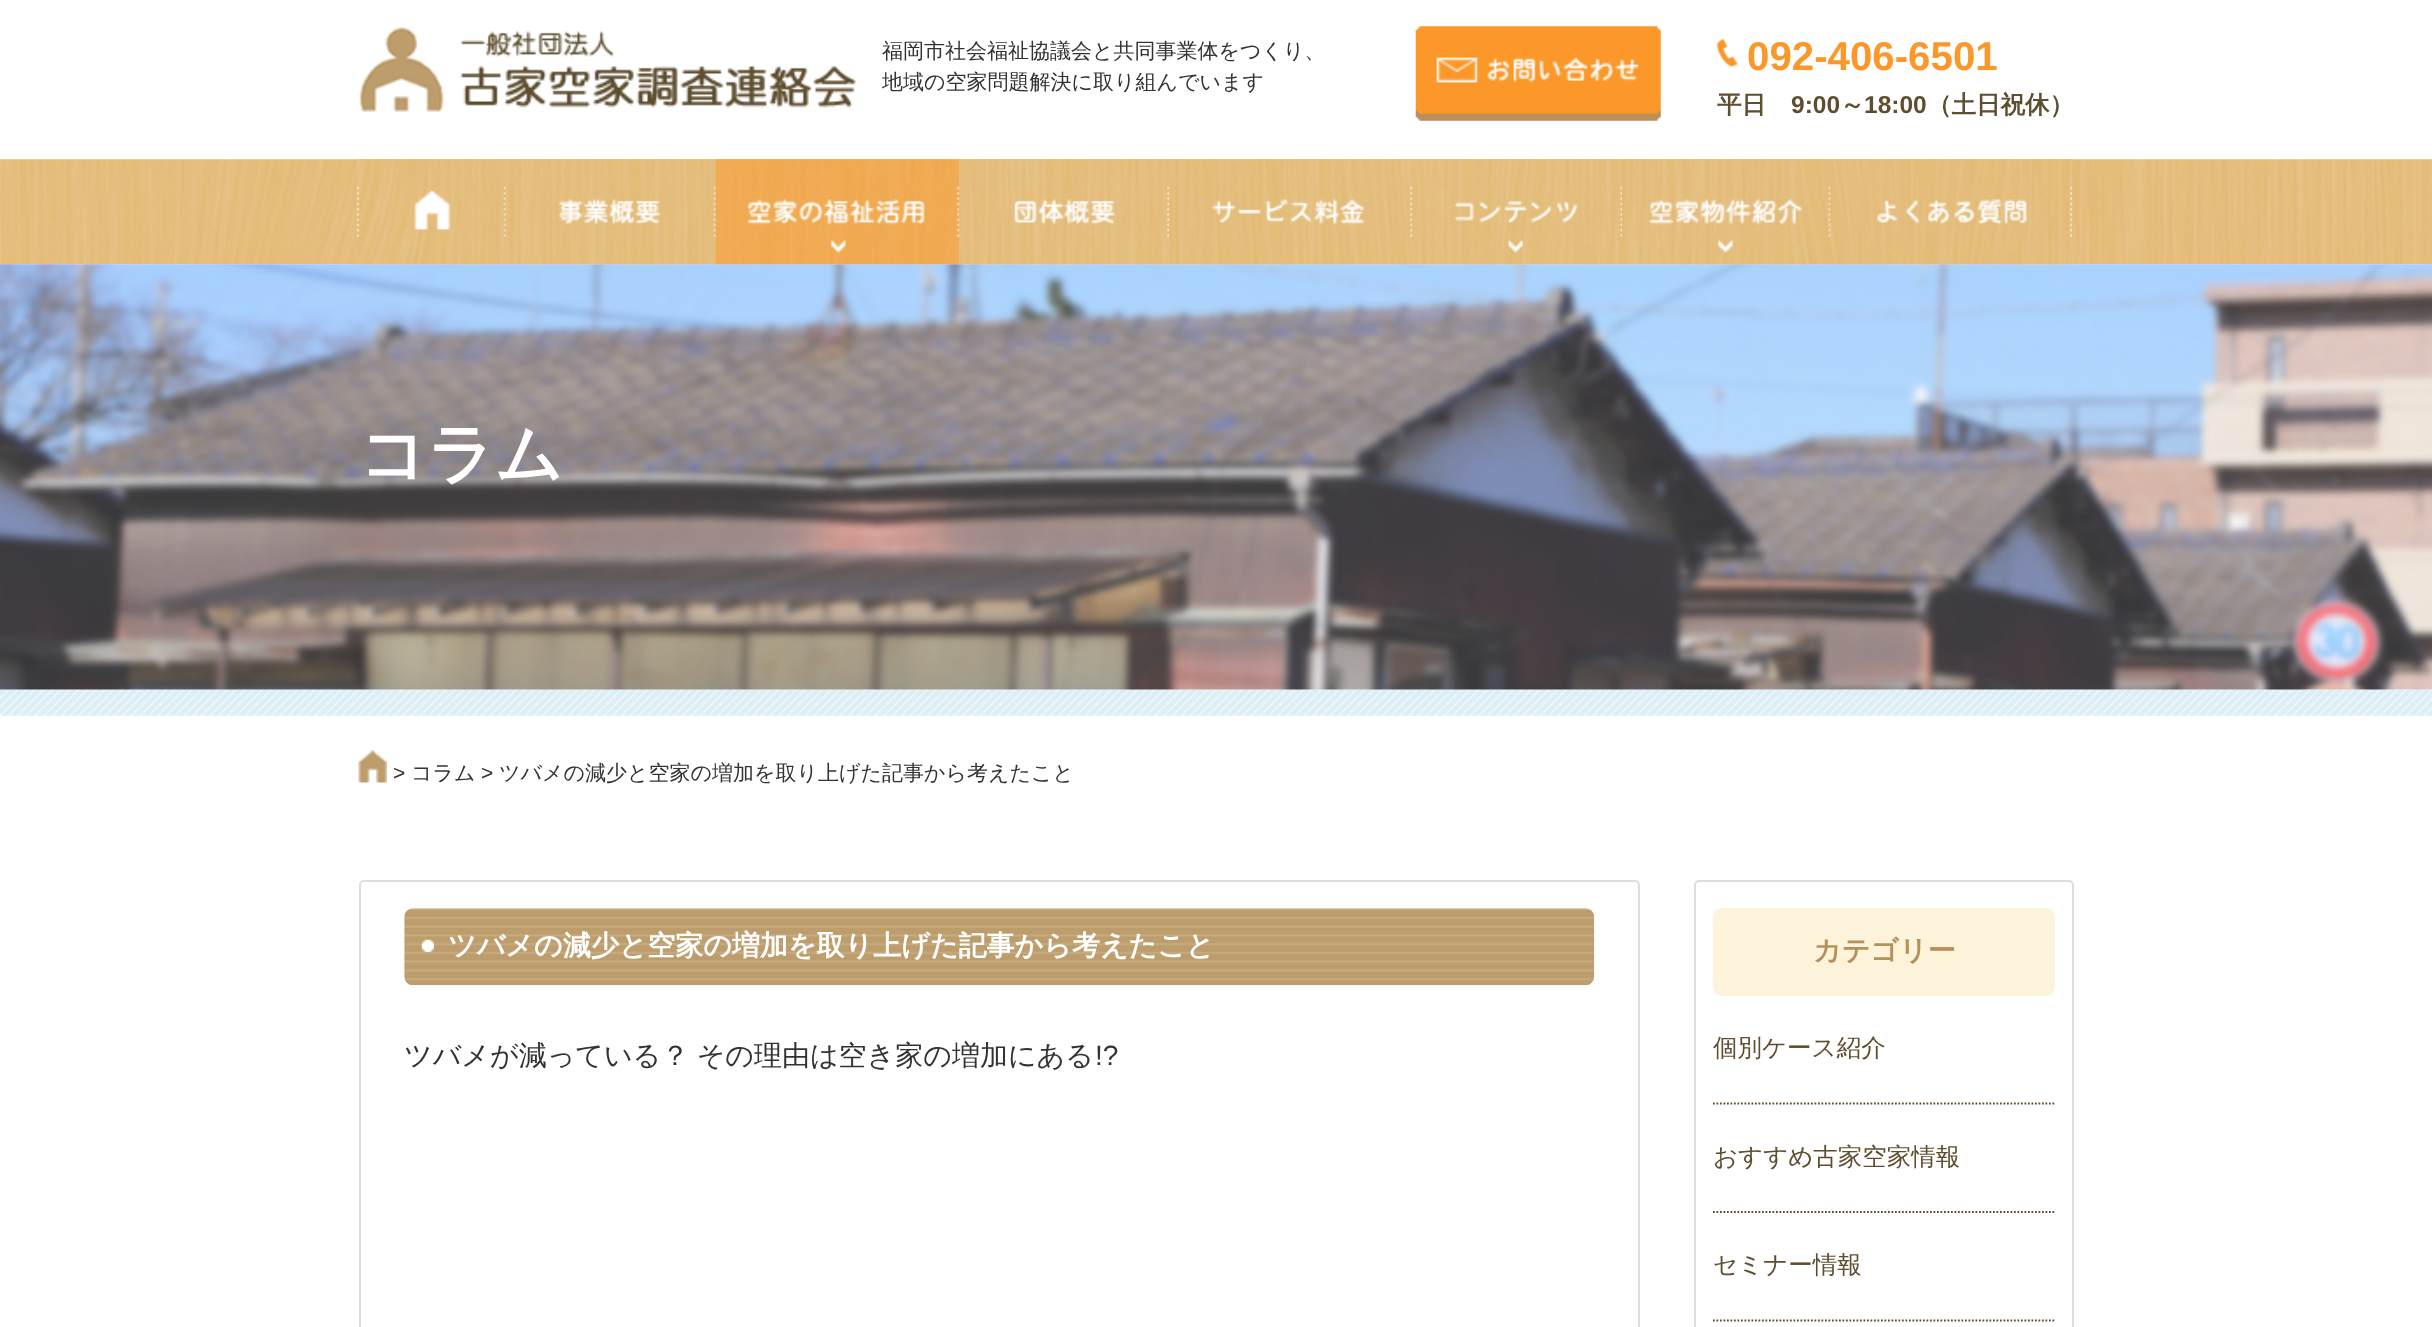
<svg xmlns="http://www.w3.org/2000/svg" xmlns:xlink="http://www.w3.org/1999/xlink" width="2432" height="1327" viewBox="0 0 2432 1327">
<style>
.cls-1{font:500 21px WenQuanYi Zen Hei;fill:#333333}
.cls-2{font:bold 40.25px Liberation Sans;fill:#fc9829}
.cls-3{font:bold 24.5px WenQuanYi Zen Hei;fill:#5e4d2f}
.cls-4{font:bold 24.5px Liberation Sans;fill:#5e4d2f}
.cls-5{font:bold 66.5px WenQuanYi Zen Hei;fill:#ffffff}
.cls-6{font:21px Liberation Sans;fill:#333333}
.cls-7{font:bold 28px WenQuanYi Zen Hei;fill:#ffffff}
.cls-8{font:500 28px WenQuanYi Zen Hei;fill:#333333}
.cls-9{font:28px Liberation Sans;fill:#333333}
.cls-10{font:bold 28px WenQuanYi Zen Hei;fill:#b59159}
.cls-11{font:500 24.5px WenQuanYi Zen Hei;fill:#5e4d2f}
</style>
<rect width="100%" height="100%" fill="#ffffff"/>
<image xlink:href="image0.png" x="358" y="26" width="498" height="86"/>
<image xlink:href="image1.png" x="1415" y="26" width="246" height="95"/>
<image xlink:href="image2.png" x="1716" y="38" width="22" height="29"/>
<image xlink:href="image3.png" x="0" y="159" width="2432" height="106"/>
<image xlink:href="image12.png" x="0" y="689" width="2432" height="27"/>
<image xlink:href="image13.png" x="0" y="264" width="2432" height="426"/>
<image xlink:href="image4.png" x="357" y="159" width="149" height="106"/>
<image xlink:href="image5.png" x="505" y="159" width="211" height="106"/>
<image xlink:href="image6.png" x="715" y="159" width="244" height="106"/>
<image xlink:href="image7.png" x="959" y="159" width="210" height="106"/>
<image xlink:href="image8.png" x="1169" y="159" width="244" height="106"/>
<image xlink:href="image9.png" x="1412" y="159" width="211" height="106"/>
<image xlink:href="image10.png" x="1622" y="159" width="209" height="106"/>
<image xlink:href="image11.png" x="1830" y="159" width="242" height="106"/>
<image xlink:href="image14.png" x="358" y="750" width="29" height="33"/>
<image xlink:href="image15.png" x="358" y="750" width="29" height="33"/>
<rect fill="none" stroke="#dddddd" stroke-width="2" x="360" y="881" width="1279" height="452" rx="4"/>
<image xlink:href="image16.png" x="404" y="908" width="1191" height="78"/>
<image xlink:href="image17.png" x="421" y="939" width="13" height="13"/>
<rect fill="none" stroke="#dddddd" stroke-width="2" x="1695" y="881" width="378" height="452" rx="4"/>
<rect fill="#fdf3db" x="1713" y="908" width="342" height="88" rx="9"/>
<path fill="none" stroke="#5e4c2d" stroke-width="1.8" stroke-dasharray="1.75 1.75" d="M1713 1103.5H2054.5"/>
<path fill="none" stroke="#5e4c2d" stroke-width="1.8" stroke-dasharray="1.75 1.75" d="M1713 1212H2054.5"/>
<path fill="none" stroke="#5e4c2d" stroke-width="1.8" stroke-dasharray="1.75 1.75" d="M1713 1320.5H2054.5"/>
<text class="cls-1"><tspan x="882" y="58">福岡市社会福祉協議会と共同事業体をつくり、</tspan><tspan x="882" y="89">地域の空家問題解決に取り組んでいます</tspan></text>
<text class="cls-2" x="1747" y="70">092-406-6501</text>
<text class="cls-3" x="1717" y="113">平日</text>
<text class="cls-4" x="1791" y="113">9:00</text>
<text class="cls-3" x="1840" y="113">～</text>
<text class="cls-4" x="1864" y="113">18:00</text>
<text class="cls-3" x="1927" y="113">（土日祝休）</text>
<text class="cls-5" x="359" y="477">コラム</text>
<text class="cls-6" x="393" y="780">&gt;</text>
<text class="cls-1" x="411" y="780">コラム</text>
<text class="cls-6" x="481" y="780">&gt;</text>
<text class="cls-1" x="499" y="780">ツバメの減少と空家の増加を取り上げた記事から考えたこと</text>
<text class="cls-7" x="448" y="955">ツバメの減少と空家の増加を取り上げた記事から考えたこと</text>
<text class="cls-8" x="404" y="1065" word-spacing="-1">ツバメが減っている？ その理由は空き家の増加にある</text>
<text class="cls-9" x="1095" y="1065">!?</text>
<text class="cls-10" x="1813" y="960">カテゴリー</text>
<text class="cls-11" x="1713" y="1056">個別ケース紹介</text>
<text class="cls-11" x="1713" y="1165">おすすめ古家空家情報</text>
<text class="cls-11" x="1713" y="1273">セミナー情報</text>
</svg>
